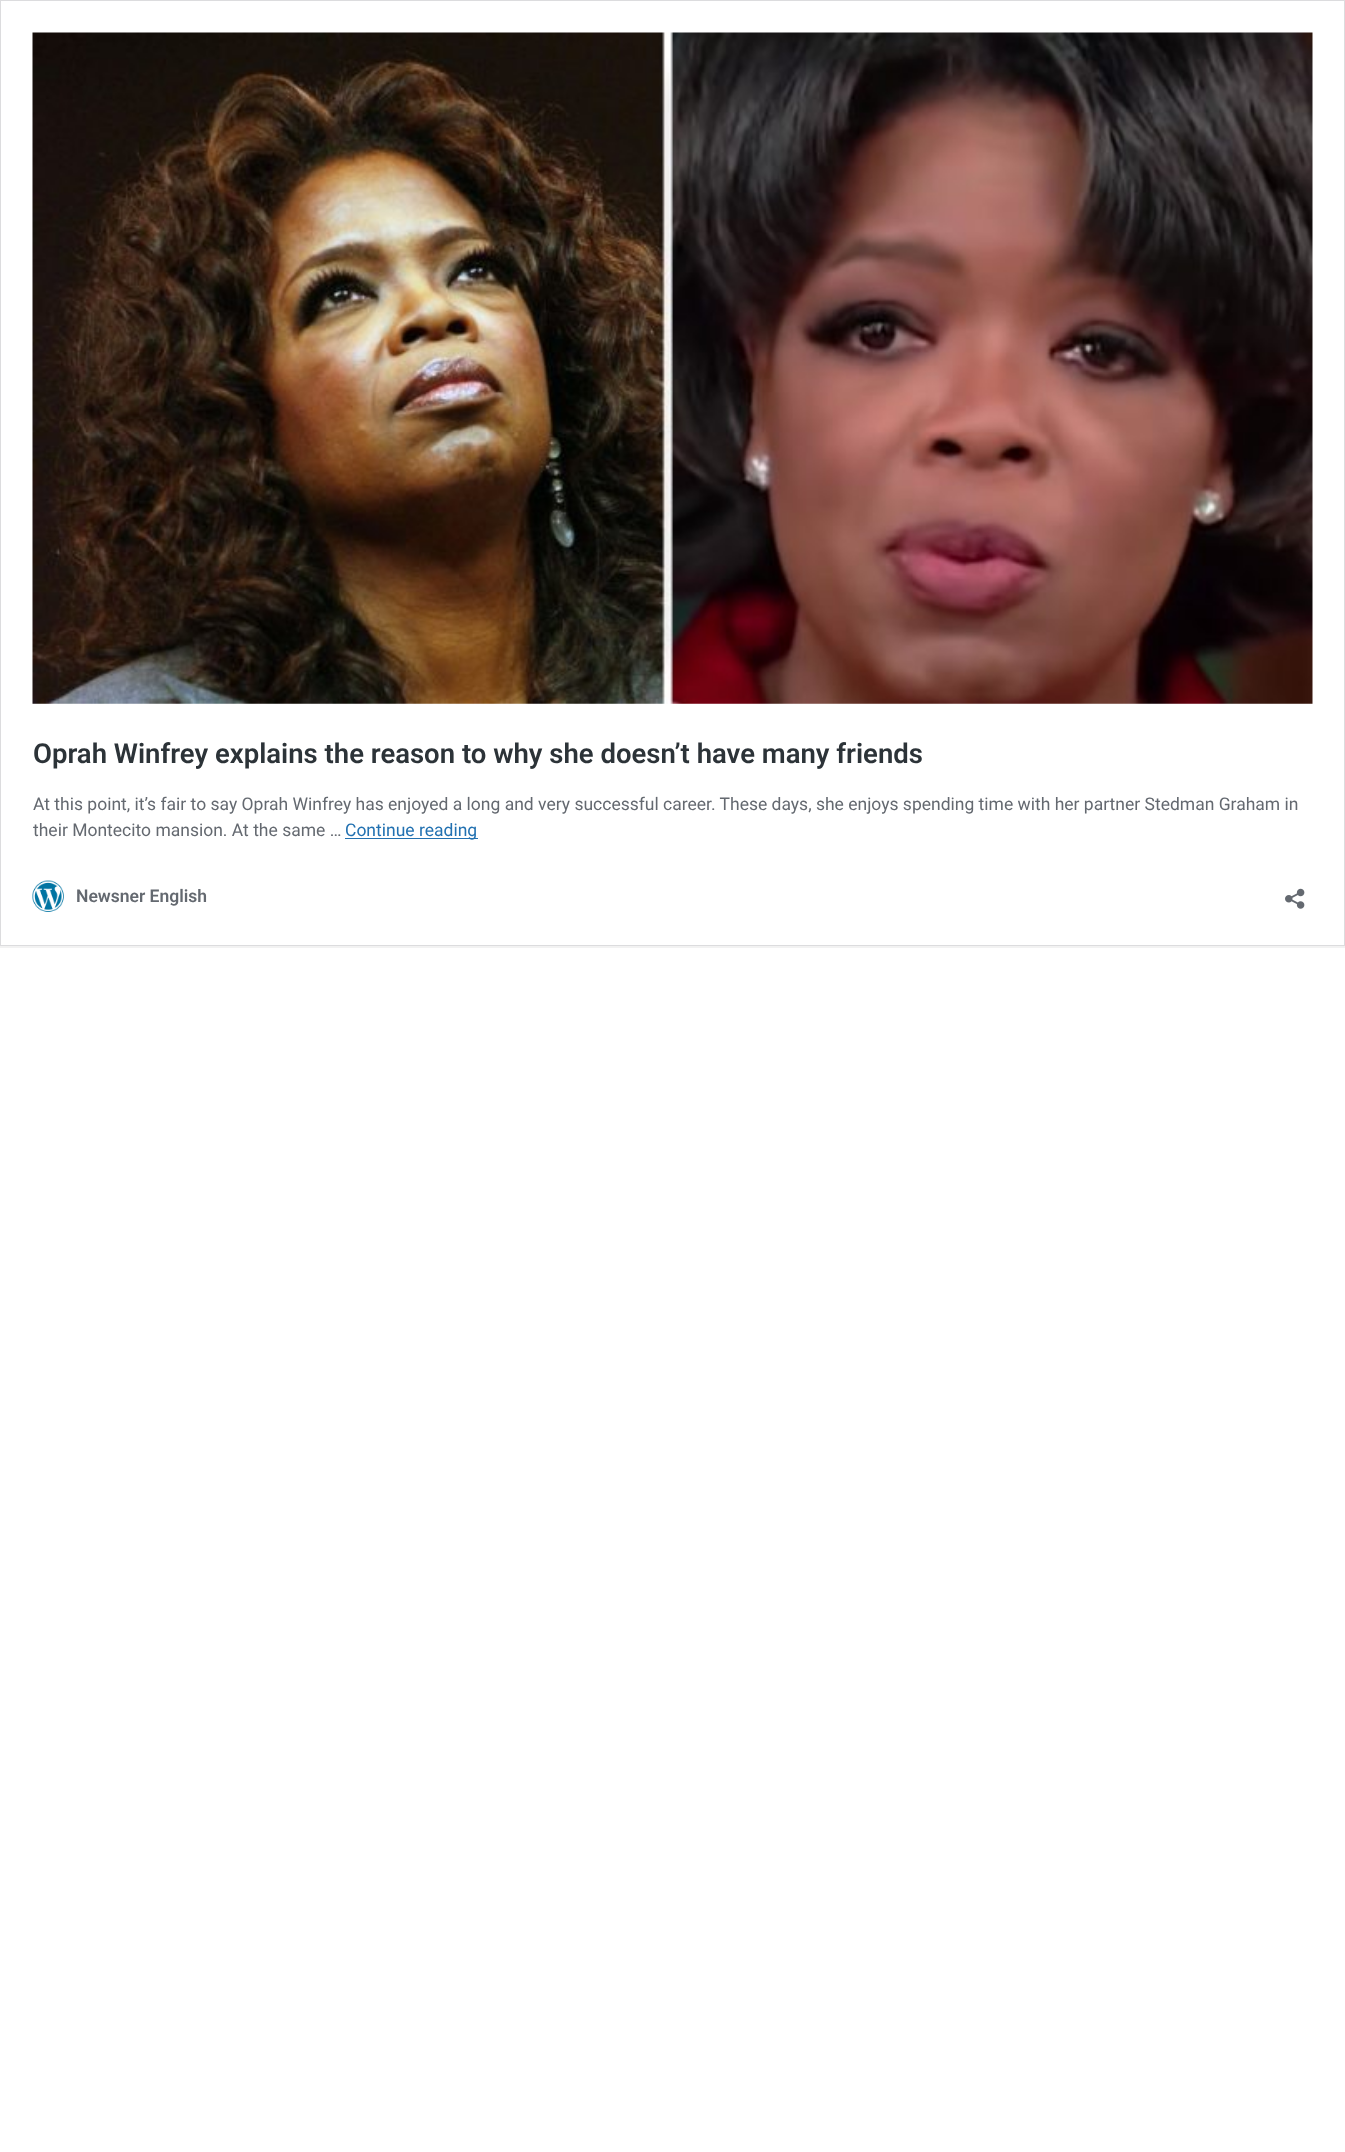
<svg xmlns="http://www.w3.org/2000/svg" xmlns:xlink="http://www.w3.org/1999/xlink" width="1345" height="2152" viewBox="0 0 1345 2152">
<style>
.cls-1{font:600 27.5px Roboto;fill:#2c3338}
.cls-2{font:17.5px Roboto;fill:#646970}
.cls-3{font:17.5px Roboto;fill:#2271b1}
.cls-4{font:600 17.5px Roboto;fill:#646970}
</style>
<defs>
<clipPath id="clip1"><rect x="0" y="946" width="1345" height="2"/></clipPath>
</defs>
<rect width="100%" height="100%" fill="#ffffff"/>
<g clip-path="url(#clip1)">
<rect fill="#000000" fill-opacity="0.05" filter="blur(0.5px)" x="0" y="1" width="1345" height="947"/>
</g>
<rect fill="none" stroke="#dcdcde" x="0.5" y="0.5" width="1344" height="945"/>
<image xlink:href="image0.png" x="32" y="32" width="1281" height="672"/>
<rect fill="#2271b1" x="345" y="838" width="133" height="1"/>
<image xlink:href="image1.png" x="32" y="880" width="32" height="32"/>
<image xlink:href="image2.png" x="1285" y="888" width="20" height="21"/>
<text class="cls-1" x="33" y="763">Oprah Winfrey explains the reason to why she doesn’t have many friends</text>
<text class="cls-2"><tspan x="33" y="810">At this point, it’s fair to say Oprah Winfrey has enjoyed a long and very successful career. These days, she enjoys spending time with her partner Stedman Graham in</tspan><tspan x="33" y="836">their Montecito mansion. At the same …</tspan></text>
<text class="cls-3" x="345" y="836">Continue reading</text>
<text class="cls-4" x="76" y="902">Newsner English</text>
</svg>
